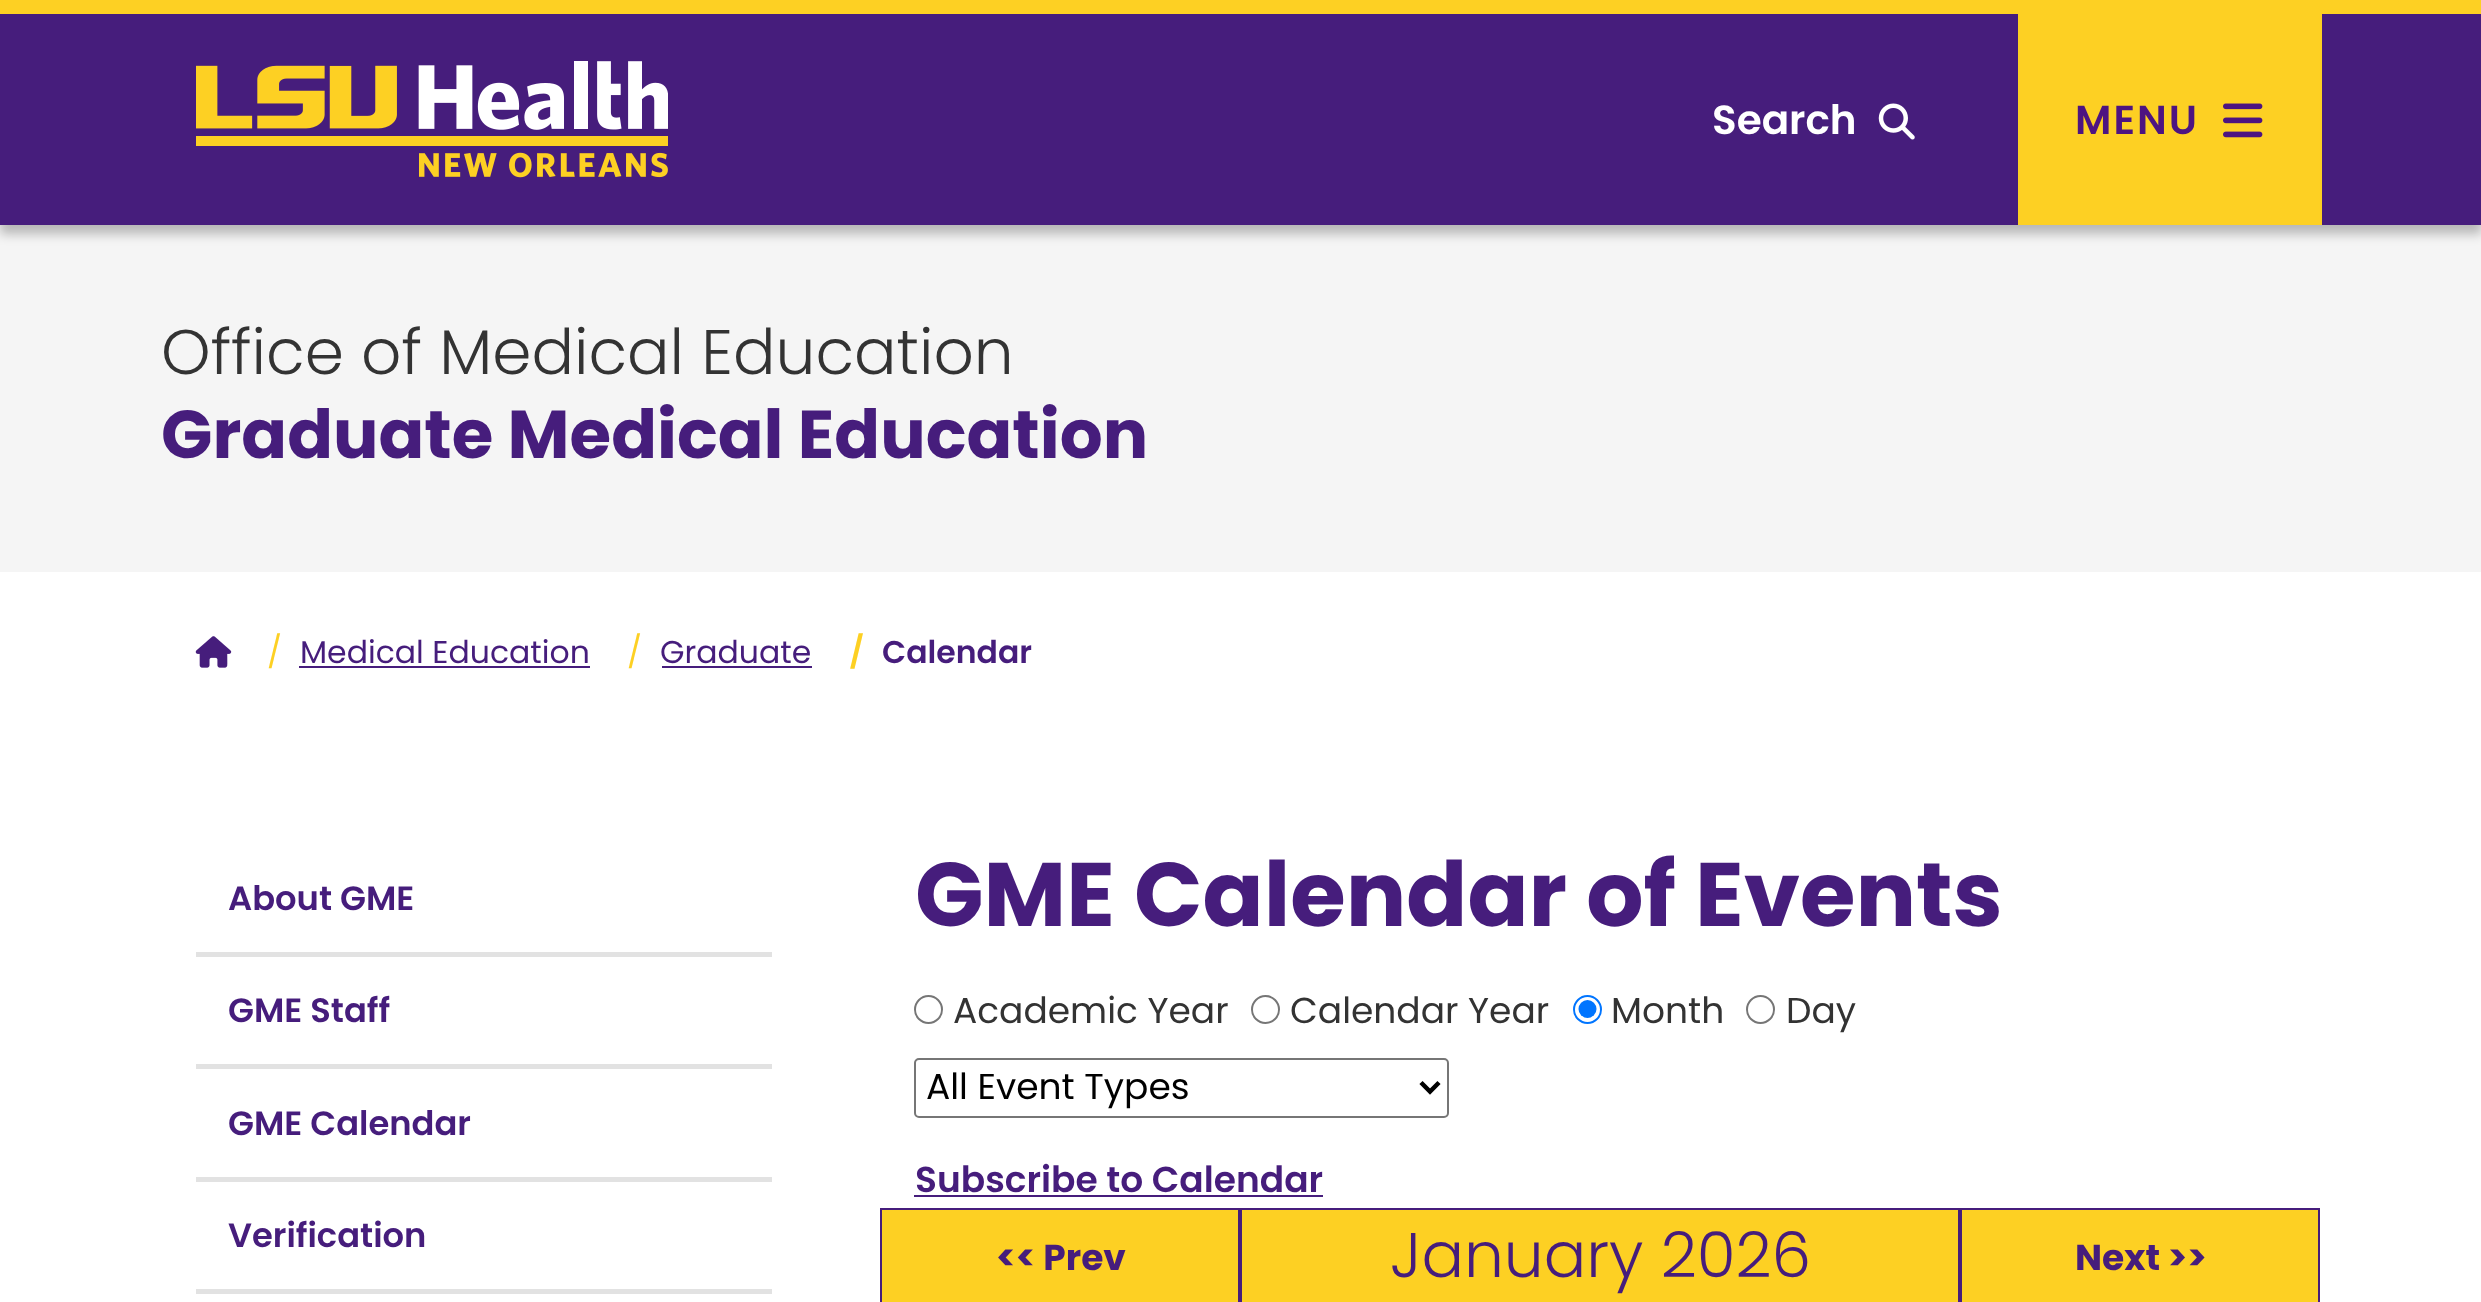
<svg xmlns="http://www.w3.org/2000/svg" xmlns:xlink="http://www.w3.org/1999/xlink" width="2481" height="1302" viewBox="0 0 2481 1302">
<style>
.cls-1{font:600 40.5px Poppins;fill:#ffffff}
.cls-2{font:600 40.5px Poppins;letter-spacing:2px;fill:#4d1481}
.cls-3{font:300 63px Poppins;fill:#333333}
.cls-4{font:bold 67.5px Poppins;fill:#461d7c}
.cls-5{font:31.5px Poppins;fill:#fdd023}
.cls-6{font:31.5px Poppins;fill:#461d7c}
.cls-7{font:600 31.5px Poppins;fill:#fdd023}
.cls-8{font:600 31.5px Poppins;fill:#461d7c}
.cls-9{font:600 33.75px Poppins;fill:#461d7c}
.cls-10{font:bold 90px Poppins;fill:#461d7c}
.cls-11{font:36px Poppins;fill:#333333}
.cls-12{font:36px Poppins;fill:#000000}
.cls-13{font:600 36px Poppins;fill:#461d7c}
.cls-14{font:bold 36px Poppins;fill:#461d7c}
.cls-15{font:300 63px Poppins;fill:#461d7c}
</style>
<rect width="100%" height="100%" fill="#ffffff"/>
<rect fill="#f5f5f5" x="0" y="225" width="2481" height="347"/>
<rect fill="#000000" fill-opacity="0.25" filter="blur(5.5px)" x="0" y="9" width="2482" height="225"/>
<rect fill="#461d7c" x="0" y="14" width="2481" height="211"/>
<rect fill="#fdd023" x="0" y="0" width="2481" height="14"/>
<image xlink:href="image0.png" x="196" y="61" width="472" height="117"/>
<image xlink:href="image1.png" x="1878" y="103" width="37" height="37"/>
<rect fill="#fdd023" x="2018" y="14" width="304" height="211"/>
<image xlink:href="image2.png" x="2223" y="103" width="40" height="35"/>
<image xlink:href="image3.png" x="195" y="636" width="37" height="32"/>
<rect fill="#461d7c" x="299" y="666" width="291" height="2"/>
<rect fill="#461d7c" x="662" y="666" width="150" height="2"/>
<rect fill="#e2e2e2" x="196" y="952" width="576" height="5"/>
<rect fill="#e2e2e2" x="196" y="1064" width="576" height="5"/>
<rect fill="#e2e2e2" x="196" y="1177" width="576" height="5"/>
<rect fill="#e2e2e2" x="196" y="1289" width="576" height="5"/>
<circle fill="none" stroke="#767676" stroke-width="2" cx="928.5" cy="1009.5" r="13.5"/>
<circle fill="none" stroke="#767676" stroke-width="2" cx="1265.5" cy="1009.5" r="13.5"/>
<circle fill="none" stroke="#0075ff" stroke-width="2" cx="1587.5" cy="1009.5" r="13.5"/>
<circle fill="#0075ff" cx="1587.5" cy="1009" r="9"/>
<circle fill="none" stroke="#767676" stroke-width="2" cx="1760.5" cy="1009.5" r="13.5"/>
<rect fill="none" stroke="#767676" stroke-width="2" x="915" y="1059" width="533" height="58" rx="4"/>
<path fill="none" stroke="#000000" stroke-width="4.5" d="M1421 1082.5L1430 1091.5L1439 1082.5"/>
<rect fill="#461d7c" x="914" y="1195" width="409" height="2"/>
<rect fill="#fdd023" stroke="#461d7c" stroke-width="2" x="881" y="1209" width="358" height="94"/>
<rect fill="#fdd023" stroke="#461d7c" stroke-width="2" x="1241" y="1209" width="718" height="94"/>
<rect fill="#fdd023" stroke="#461d7c" stroke-width="2" x="1961" y="1209" width="358" height="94"/>
<text class="cls-1" x="1712" y="134">Search</text>
<text class="cls-2" x="2075" y="134">MENU</text>
<text class="cls-3" x="161" y="374">Office of Medical Education</text>
<text class="cls-4" x="161" y="458">Graduate Medical Education</text>
<text class="cls-5" x="267" y="663">/</text>
<text class="cls-6" x="300" y="663">Medical Education</text>
<text class="cls-5" x="627" y="663">/</text>
<text class="cls-6" x="660" y="663">Graduate</text>
<text class="cls-7" x="849" y="663">/</text>
<text class="cls-8" x="882" y="663">Calendar</text>
<text class="cls-9" x="228" y="910">About GME</text>
<text class="cls-9" x="228" y="1022">GME Staff</text>
<text class="cls-9" x="228" y="1135">GME Calendar</text>
<text class="cls-9" x="228" y="1247">Verification</text>
<text class="cls-10" x="915" y="926">GME Calendar of Events</text>
<text class="cls-11" x="953" y="1023">Academic Year</text>
<text class="cls-11" x="1290" y="1023">Calendar Year</text>
<text class="cls-11" x="1611" y="1023">Month</text>
<text class="cls-11" x="1786" y="1023">Day</text>
<text class="cls-12" x="926" y="1099">All Event Types</text>
<text class="cls-13" x="915" y="1192">Subscribe to Calendar</text>
<text class="cls-14" x="996" y="1270">&lt;&lt; Prev</text>
<text class="cls-15" x="1390" y="1277">January 2026</text>
<text class="cls-14" x="2075" y="1270">Next &gt;&gt;</text>
</svg>
